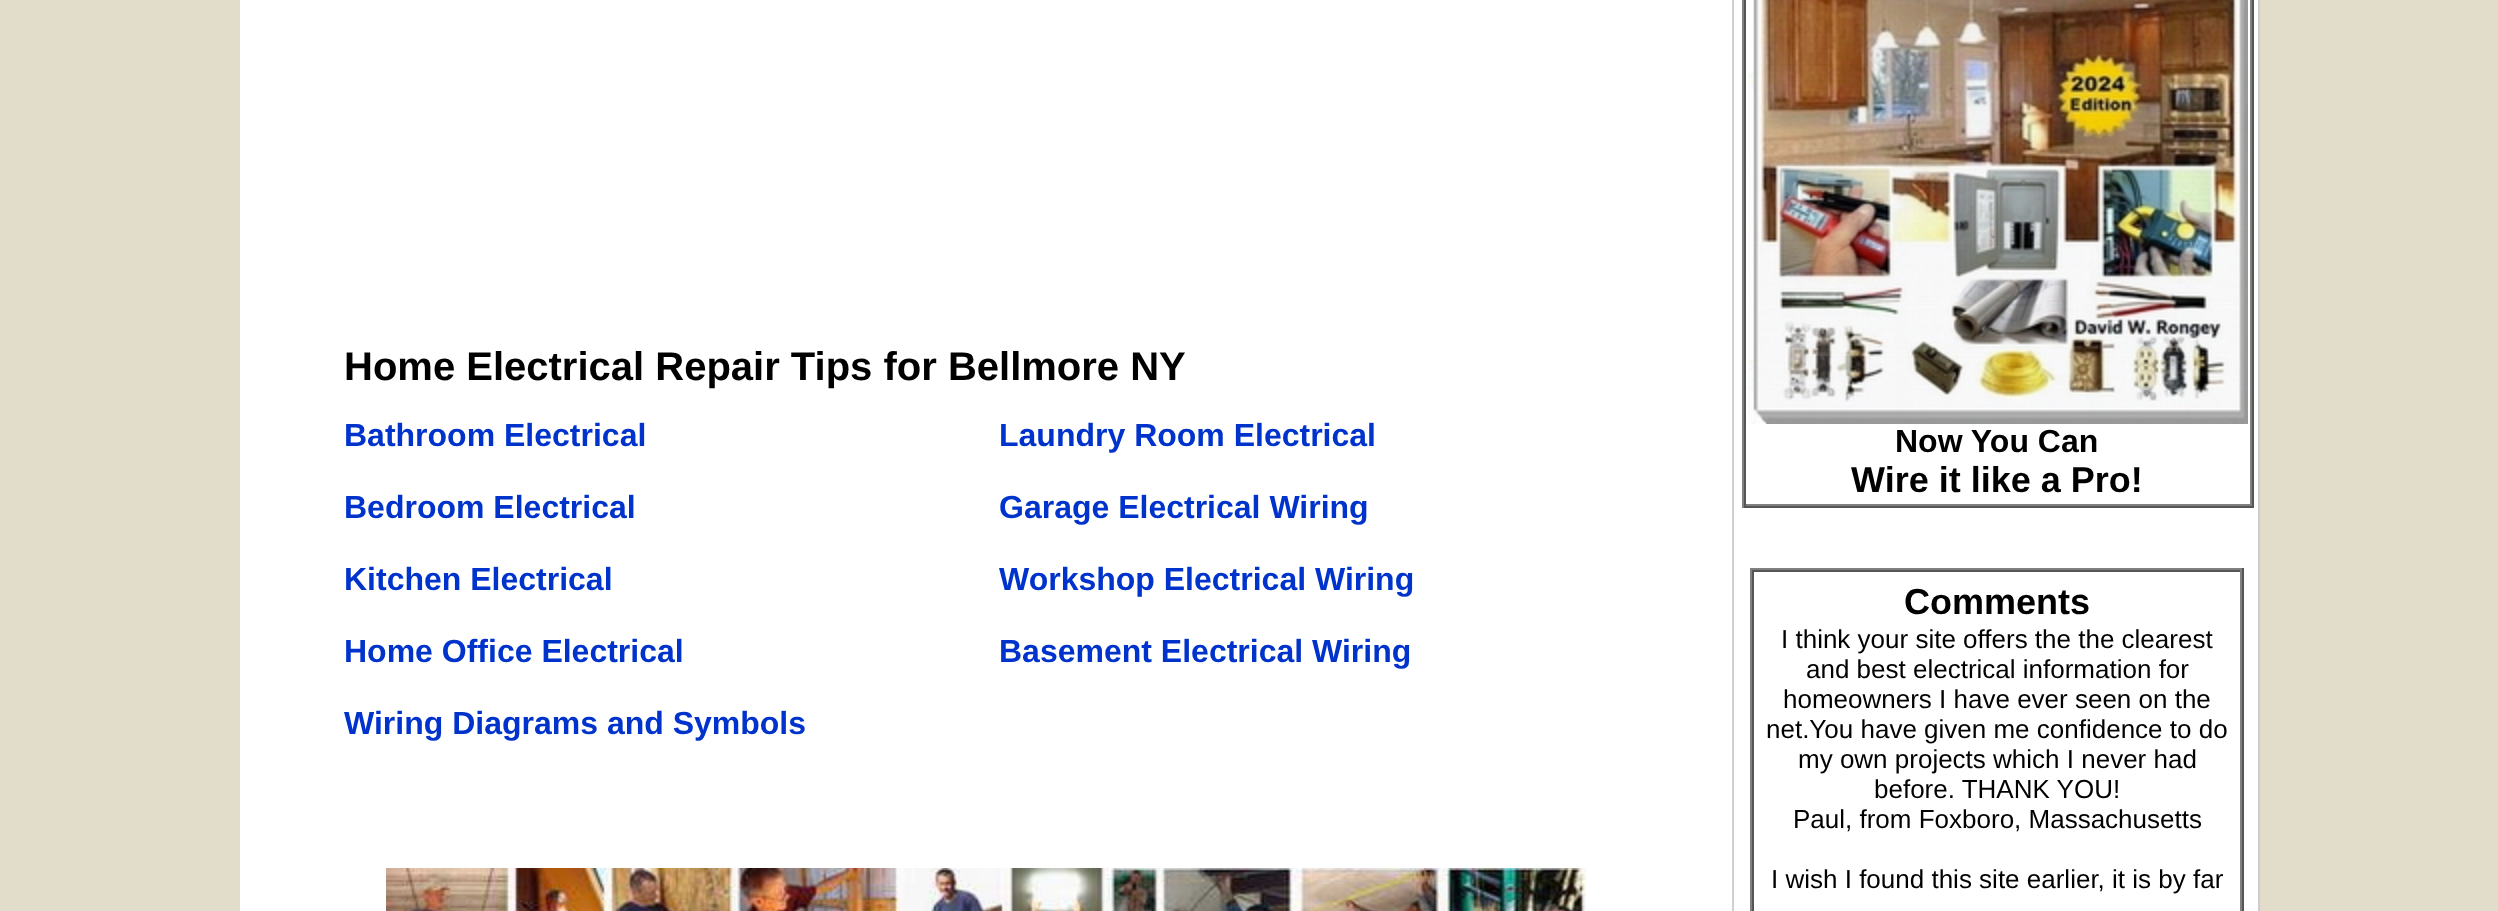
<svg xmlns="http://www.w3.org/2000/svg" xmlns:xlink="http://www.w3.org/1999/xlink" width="2498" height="911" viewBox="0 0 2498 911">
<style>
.cls-1{font:bold 40px Liberation Sans;fill:#000000}
.cls-2{font:bold 32px Liberation Sans;fill:#0033cc}
.cls-3{font:bold 32px Liberation Sans;fill:#000000}
.cls-4{font:bold 36px Liberation Sans;fill:#000000}
.cls-5{font:26px Liberation Sans;fill:#000000}
</style>
<rect width="100%" height="100%" fill="#e2ddcb"/>
<rect fill="#ffffff" x="240" y="0" width="2018" height="911"/>
<rect fill="#ccd2d2" x="1732" y="0" width="2" height="911"/>
<image xlink:href="image0.png" x="386" y="868" width="1200" height="43"/>
<rect fill="#cccccc" x="2258" y="0" width="2" height="911"/>
<rect fill="#555555" x="2252" y="0" width="2" height="508"/>
<rect fill="#555555" x="1742" y="506" width="512" height="2"/>
<rect fill="#808080" x="1742" y="0" width="2" height="508"/>
<rect fill="#808080" x="2250" y="0" width="2" height="506"/>
<rect fill="#808080" x="1744" y="504" width="508" height="2"/>
<rect fill="#555555" x="1744" y="0" width="2" height="506"/>
<image xlink:href="image1.png" x="1748" y="0" width="500" height="424"/>
<rect fill="#808080" x="1750" y="568" width="494" height="2"/>
<rect fill="#555555" x="2242" y="568" width="2" height="343"/>
<rect fill="#808080" x="1750" y="568" width="2" height="343"/>
<rect fill="#555555" x="1752" y="570" width="490" height="2"/>
<rect fill="#808080" x="2240" y="570" width="2" height="341"/>
<rect fill="#555555" x="1752" y="570" width="2" height="341"/>
<text class="cls-1" x="344" y="380">Home Electrical Repair Tips for Bellmore NY</text>
<text class="cls-2" x="344" y="446">Bathroom Electrical</text>
<text class="cls-2" x="344" y="518">Bedroom Electrical</text>
<text class="cls-2" x="344" y="590">Kitchen Electrical</text>
<text class="cls-2" x="344" y="662">Home Office Electrical</text>
<text class="cls-2" x="344" y="734">Wiring Diagrams and Symbols</text>
<text class="cls-2" x="999" y="446">Laundry Room Electrical</text>
<text class="cls-2" x="999" y="518">Garage Electrical Wiring</text>
<text class="cls-2" x="999" y="590">Workshop Electrical Wiring</text>
<text class="cls-2" x="999" y="662">Basement Electrical Wiring</text>
<text class="cls-3" x="1895" y="452">Now You Can</text>
<text class="cls-4" x="1851" y="492">Wire it like a Pro!</text>
<text class="cls-4" x="1904" y="614">Comments</text>
<text class="cls-5" x="1781" y="648">I think your site offers the the clearest</text>
<text class="cls-5" x="1806" y="678">and best electrical information for</text>
<text class="cls-5" x="1783" y="708">homeowners I have ever seen on the</text>
<text class="cls-5" x="1766" y="738">net.You have given me confidence to do</text>
<text class="cls-5" x="1798" y="768">my own projects which I never had</text>
<text class="cls-5" x="1874" y="798">before. THANK YOU!</text>
<text class="cls-5" x="1793" y="828">Paul, from Foxboro, Massachusetts</text>
<text class="cls-5" x="1771" y="888">I wish I found this site earlier, it is by far</text>
</svg>
